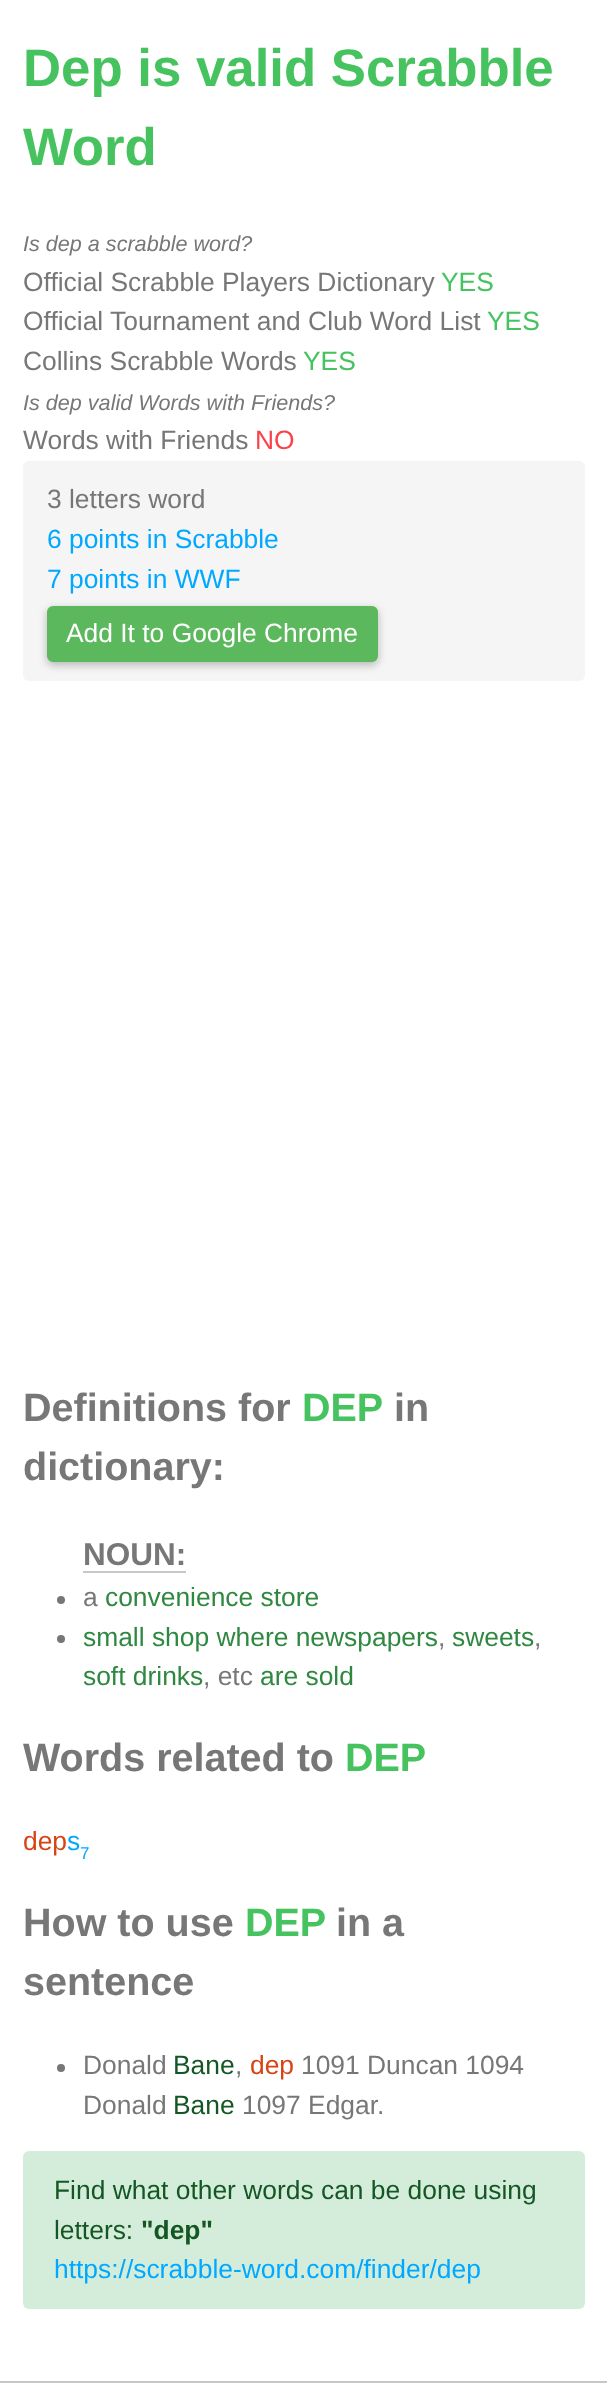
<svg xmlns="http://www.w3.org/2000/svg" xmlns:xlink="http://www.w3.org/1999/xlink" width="607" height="2402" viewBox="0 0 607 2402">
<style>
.cls-1{font:bold 52.75px Liberation Sans;fill:#46c35f}
.cls-2{font:italic 21.6px Liberation Sans;fill:#777777}
.cls-3{font:26.4px Liberation Sans;fill:#777777}
.cls-4{font:26.4px Liberation Sans;fill:#46c35f}
.cls-5{font:26.4px Liberation Sans;fill:#fa424a}
.cls-6{font:26.4px Liberation Sans;fill:#00a8ff}
.cls-7{font:26.4px Liberation Sans;fill:#ffffff}
.cls-8{font:bold 39.5px Liberation Sans;fill:#777777}
.cls-9{font:bold 39.5px Liberation Sans;fill:#46c35f}
.cls-10{font:bold 31.5px Liberation Sans;fill:#777777}
.cls-11{font:26.4px Liberation Sans;fill:#2e8840}
.cls-12{font:26.4px Liberation Sans;fill:#d84314}
.cls-13{font:17px Liberation Sans;fill:#00a8ff}
.cls-14{font:26.4px Liberation Sans;fill:#155724}
.cls-15{font:bold 26.4px Liberation Sans;fill:#155724}
</style>
<rect width="100%" height="100%" fill="#ffffff"/>
<rect fill="#f5f5f5" x="23" y="461" width="562" height="220" rx="6"/>
<rect fill="#000000" fill-opacity="0.26" filter="blur(4px)" x="47" y="609" width="331" height="56" rx="6"/>
<rect fill="#5cb85c" stroke="#5cb85c" stroke-width="2" x="48" y="607" width="329" height="54" rx="5"/>
<rect fill="#c7c7c7" x="83" y="1571" width="103" height="2"/>
<circle fill="#777777" cx="61" cy="1600" r="4"/>
<circle fill="#777777" cx="61" cy="1639" r="4"/>
<circle fill="#777777" cx="61" cy="2068" r="4"/>
<rect fill="#d4edda" x="23" y="2151" width="562" height="158" rx="6"/>
<rect fill="#c7c7c7" x="0" y="2381" width="607" height="2"/>
<text class="cls-1"><tspan x="23" y="86">Dep is valid Scrabble</tspan><tspan x="23" y="165">Word</tspan></text>
<text class="cls-2" x="23" y="251">Is dep a scrabble word?</text>
<text class="cls-3" x="23" y="291">Official Scrabble Players Dictionary</text>
<text class="cls-4" x="441" y="291">YES</text>
<text class="cls-3" x="23" y="330">Official Tournament and Club Word List</text>
<text class="cls-4" x="487" y="330">YES</text>
<text class="cls-3" x="23" y="370">Collins Scrabble Words</text>
<text class="cls-4" x="303" y="370">YES</text>
<text class="cls-2" x="23" y="410">Is dep valid Words with Friends?</text>
<text class="cls-3" x="23" y="449">Words with Friends</text>
<text class="cls-5" x="255" y="449">NO</text>
<text class="cls-3" x="47" y="508">3 letters word</text>
<text class="cls-6"><tspan x="47" y="548">6 points in Scrabble</tspan><tspan x="47" y="588">7 points in WWF</tspan></text>
<text class="cls-7" x="66" y="642">Add It to Google Chrome</text>
<text class="cls-8" x="23" y="1421">Definitions for</text>
<text class="cls-9" x="302" y="1421">DEP</text>
<text class="cls-8" x="394" y="1421">in</text>
<text class="cls-8" x="23" y="1480">dictionary:</text>
<text class="cls-10" x="83" y="1565">NOUN:</text>
<text class="cls-3" x="83" y="1606">a</text>
<text class="cls-11" x="105" y="1606">convenience store</text>
<text class="cls-11" x="83" y="1646">small shop where newspapers</text>
<text class="cls-11" x="452" y="1646">sweets</text>
<text class="cls-3" x="438" y="1646">,</text>
<text class="cls-3" x="534" y="1646">,</text>
<text class="cls-11" x="83" y="1685">soft drinks</text>
<text class="cls-3" x="203" y="1685">, etc</text>
<text class="cls-11" x="260" y="1685">are sold</text>
<text class="cls-8" x="23" y="1771">Words related to</text>
<text class="cls-9" x="345" y="1771">DEP</text>
<text class="cls-12" x="23" y="1850">dep</text>
<text class="cls-6" x="67" y="1850">s</text>
<text class="cls-13" x="80" y="1859">7</text>
<text class="cls-8" x="23" y="1936">How to use</text>
<text class="cls-9" x="245" y="1936">DEP</text>
<text class="cls-8" x="336" y="1936">in a</text>
<text class="cls-8" x="23" y="1995">sentence</text>
<text class="cls-3" x="83" y="2074">Donald</text>
<text class="cls-14" x="173" y="2074">Bane</text>
<text class="cls-12" x="250" y="2074">dep</text>
<text class="cls-3" x="301" y="2074">1091 Duncan 1094</text>
<text class="cls-3" x="235" y="2074">,</text>
<text class="cls-3" x="83" y="2114">Donald</text>
<text class="cls-14" x="173" y="2114">Bane</text>
<text class="cls-3" x="242" y="2114">1097 Edgar.</text>
<text class="cls-14"><tspan x="54" y="2199">Find what other words can be done using</tspan><tspan x="54" y="2239">letters:</tspan></text>
<text class="cls-15" x="141" y="2239">"dep"</text>
<text class="cls-6" x="54" y="2278">https://scrabble-word.com/finder/dep</text>
</svg>
